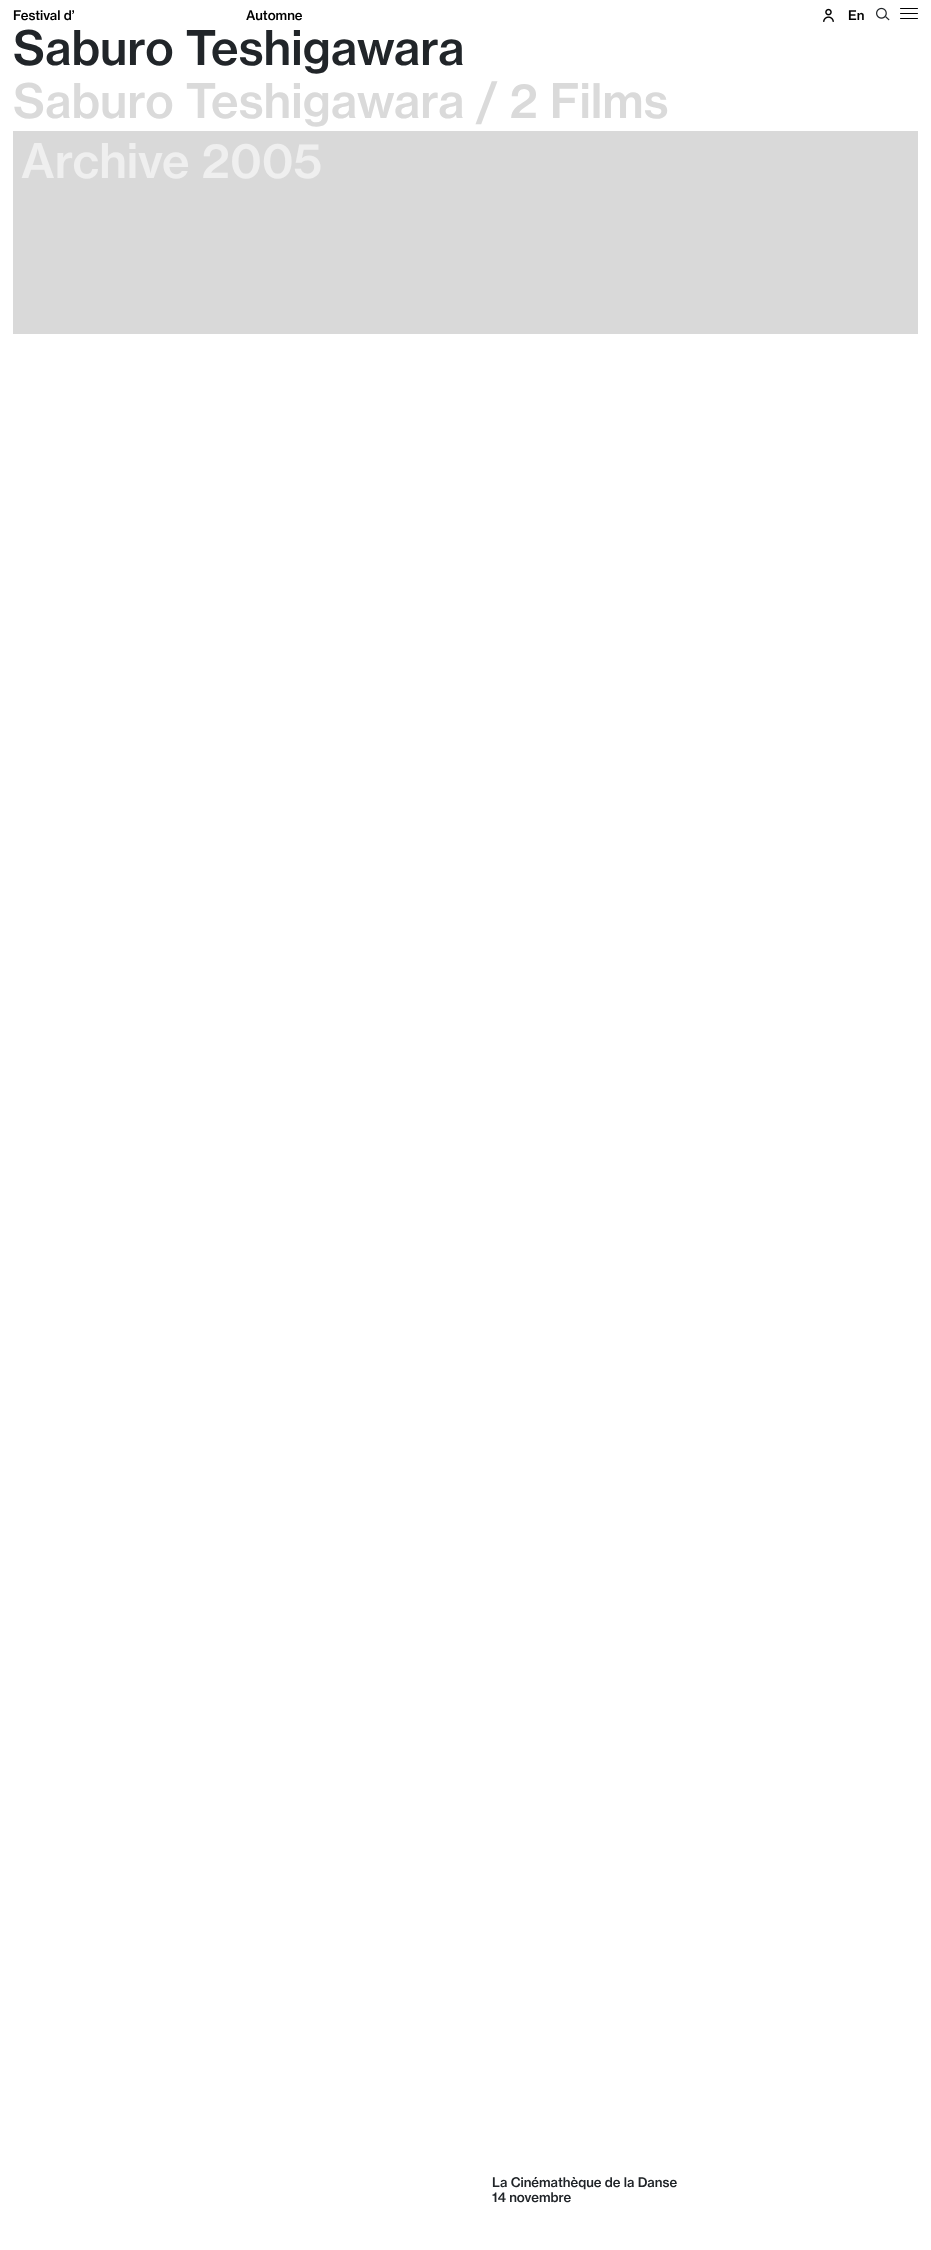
<svg xmlns="http://www.w3.org/2000/svg" xmlns:xlink="http://www.w3.org/1999/xlink" width="931" height="2250" viewBox="0 0 931 2250">
<style>
.cls-1{font:500 13.1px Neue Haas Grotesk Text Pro;fill:#000000}
.cls-2{font:500 46.9px Neue Haas Grotesk Text Pro;fill:#212529}
.cls-3{font:500 46.9px Neue Haas Grotesk Text Pro;fill:#dadada}
.cls-4{font:500 46.9px Neue Haas Grotesk Text Pro;fill:#efefef}
.cls-5{font:500 13.1px Neue Haas Grotesk Text Pro;fill:#212529}
</style>
<rect width="100%" height="100%" fill="#ffffff"/>
<image xlink:href="image0.png" x="823" y="8" width="11" height="14"/>
<image xlink:href="image1.png" x="876" y="7" width="14" height="14"/>
<rect fill="#000000" x="900" y="13" width="18" height="1" rx="0.5"/>
<rect fill="#000000" x="900" y="8" width="18" height="1" rx="0.5"/>
<rect fill="#000000" x="900" y="18" width="18" height="1" rx="0.5"/>
<rect fill="#d9d9d9" x="13" y="131" width="905" height="203"/>
<text class="cls-1" x="13" y="20">Festival d’</text>
<text class="cls-1" x="246" y="20">Automne</text>
<text class="cls-1" x="848" y="20">En</text>
<text class="cls-2" x="13" y="65">Saburo Teshigawara</text>
<text class="cls-3" x="13" y="118">Saburo Teshigawara / 2 Films</text>
<text class="cls-4" x="21" y="178">Archive 2005</text>
<text class="cls-5"><tspan x="492" y="2187">La Cinémathèque de la Danse</tspan><tspan x="492" y="2202">14 novembre</tspan></text>
</svg>
